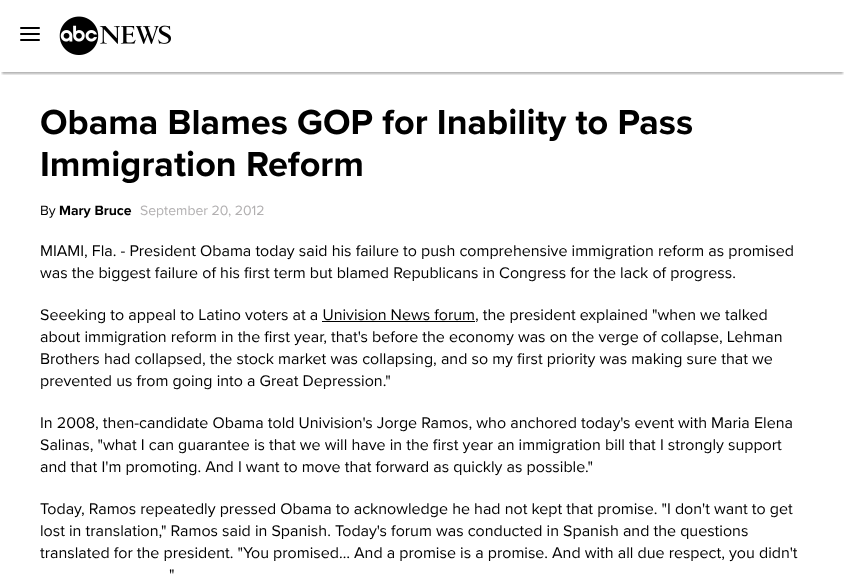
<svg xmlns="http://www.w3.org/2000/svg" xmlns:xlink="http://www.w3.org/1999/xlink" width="845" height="576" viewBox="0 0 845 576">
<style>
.cls-1{font:bold 36px Proxima Nova;fill:#000000}
.cls-2{font:14px Proxima Nova;fill:#000000}
.cls-3{font:bold 14px Proxima Nova;fill:#000000}
.cls-4{font:14px Proxima Nova;fill:#b2b0b1}
.cls-5{font:16px Proxima Nova;fill:#000000}
</style>
<defs>
<clipPath id="clip1"><rect x="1" y="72" width="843" height="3"/></clipPath>
</defs>
<rect width="100%" height="100%" fill="#ffffff"/>
<g clip-path="url(#clip1)">
<rect fill="#000000" fill-opacity="0.3" filter="blur(1px)" x="2" y="6" width="841" height="68"/>
</g>
<rect fill="#000000" x="20" y="33" width="20" height="2" rx="1"/>
<rect fill="#000000" x="20" y="27" width="20" height="2" rx="1"/>
<rect fill="#000000" x="20" y="39" width="20" height="2" rx="1"/>
<image xlink:href="image0.png" x="59" y="16" width="112" height="39"/>
<rect fill="#000000" x="322" y="321" width="153" height="1"/>
<text class="cls-1"><tspan x="40" y="134">Obama Blames GOP for Inability to Pass</tspan><tspan x="40" y="176">Immigration Reform</tspan></text>
<text class="cls-2" x="40" y="215">By</text>
<text class="cls-3" x="59" y="215">Mary Bruce</text>
<text class="cls-4" x="140" y="215">September 20, 2012</text>
<text class="cls-5"><tspan x="40" y="256">MIAMI, Fla. - President Obama today said his failure to push comprehensive immigration reform as promised</tspan><tspan x="40" y="278">was the biggest failure of his first term but blamed Republicans in Congress for the lack of progress.</tspan></text>
<text class="cls-5"><tspan x="40" y="320">Seeeking to appeal to Latino voters at a Univision News forum, the president explained "when we talked</tspan><tspan x="40" y="342">about immigration reform in the first year, that's before the economy was on the verge of collapse, Lehman</tspan><tspan x="40" y="364">Brothers had collapsed, the stock market was collapsing, and so my first priority was making sure that we</tspan><tspan x="40" y="386">prevented us from going into a Great Depression."</tspan></text>
<text class="cls-5"><tspan x="40" y="428">In 2008, then-candidate Obama told Univision's Jorge Ramos, who anchored today's event with Maria Elena</tspan><tspan x="40" y="450">Salinas, "what I can guarantee is that we will have in the first year an immigration bill that I strongly support</tspan><tspan x="40" y="472">and that I'm promoting. And I want to move that forward as quickly as possible."</tspan></text>
<text class="cls-5"><tspan x="40" y="514">Today, Ramos repeatedly pressed Obama to acknowledge he had not kept that promise. "I don't want to get</tspan><tspan x="40" y="536">lost in translation," Ramos said in Spanish. Today's forum was conducted in Spanish and the questions</tspan><tspan x="40" y="558">translated for the president. "You promised… And a promise is a promise. And with all due respect, you didn't</tspan></text>
<text class="cls-5" x="169" y="580">"</text>
</svg>
